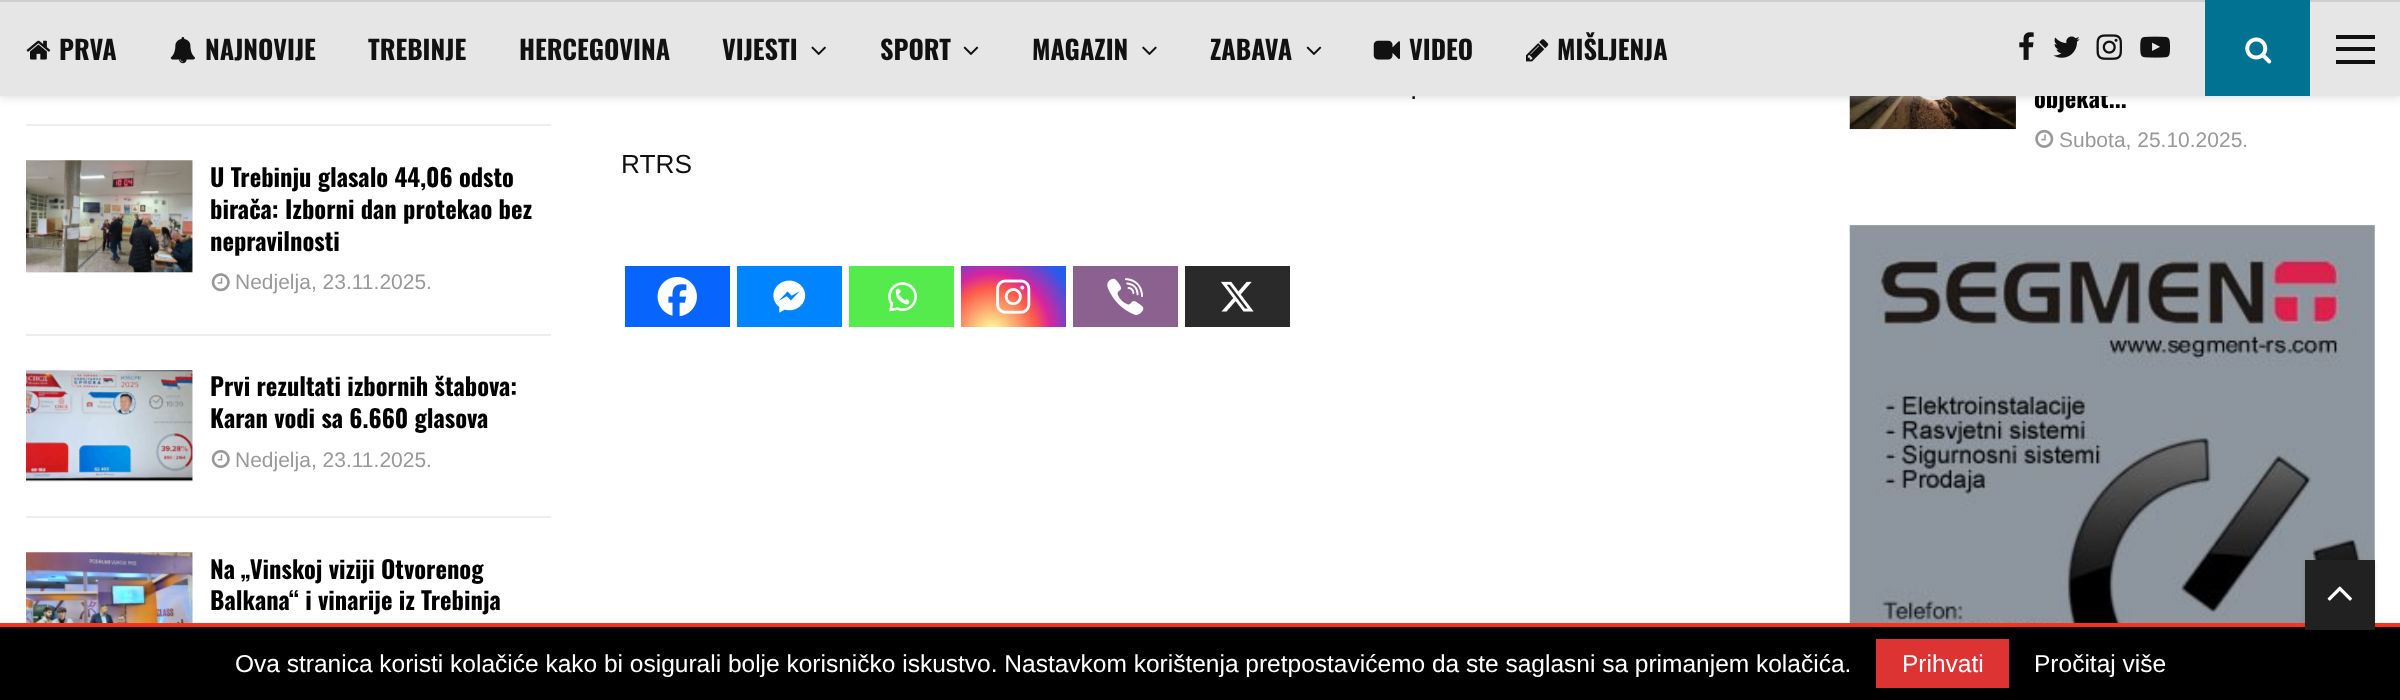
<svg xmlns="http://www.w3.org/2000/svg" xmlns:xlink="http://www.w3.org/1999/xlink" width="2400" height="700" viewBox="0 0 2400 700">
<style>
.cls-1{font:26.25px Liberation Sans;fill:#111111}
.cls-2{font:bold 24.5px Oswald;fill:#000000}
.cls-3{font:bold 26.25px Oswald;fill:#111111}
.cls-4{font:21px Liberation Sans;fill:#999999}
.cls-5{font:24.5px Liberation Sans;fill:#ffffff}
</style>
<defs>
<radialGradient id="g1" gradientUnits="userSpaceOnUse" cx="992" cy="332" r="98"><stop offset="0" stop-color="#fdf497"/><stop offset="0.05" stop-color="#fdf497"/><stop offset="0.45" stop-color="#fd5949"/><stop offset="0.6" stop-color="#d6249f"/><stop offset="0.9" stop-color="#285aeb"/></radialGradient>
</defs>
<rect width="100%" height="100%" fill="#ffffff"/>
<rect fill="#f5f5f5" x="1850" y="96" width="166" height="34"/>
<image xlink:href="image18.png" x="1849" y="96" width="167" height="33"/>
<rect fill="#000000" fill-opacity="0.3" x="1908" y="47" width="52" height="53" rx="26"/>
<rect fill="none" stroke="#ffffff" stroke-opacity="0.9" stroke-width="4" x="1910" y="49" width="48" height="49" rx="24"/>
<rect fill="#bebebe" fill-opacity="0.46" filter="blur(4.5px)" x="0" y="2" width="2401" height="96"/>
<rect fill="#cecece" x="0" y="0" width="2400" height="2"/>
<rect fill="#0765fe" x="625" y="266" width="105" height="61"/>
<image xlink:href="image12.png" x="657" y="276" width="40" height="41"/>
<rect fill="#0084ff" x="737" y="266" width="105" height="61"/>
<image xlink:href="image13.png" x="773" y="280" width="33" height="33"/>
<rect fill="#55eb4c" x="849" y="266" width="105" height="61"/>
<image xlink:href="image14.png" x="888" y="282" width="29" height="30"/>
<rect fill="url(#g1)" x="961" y="266" width="105" height="61"/>
<image xlink:href="image15.png" x="996" y="279" width="35" height="35"/>
<rect fill="#8b628f" x="1073" y="266" width="105" height="61"/>
<image xlink:href="image16.png" x="1107" y="278" width="37" height="37"/>
<rect fill="#2a2a2a" x="1185" y="266" width="105" height="61"/>
<image xlink:href="image17.png" x="1221" y="281" width="33" height="31"/>
<image xlink:href="image19.png" x="2035" y="129" width="19" height="19"/>
<image xlink:href="image20.png" x="1849" y="225" width="526" height="398"/>
<rect fill="#eeeeee" x="26" y="124" width="525" height="2"/>
<rect fill="#eeeeee" x="26" y="334" width="525" height="2"/>
<rect fill="#f5f5f5" x="26" y="161" width="167" height="112"/>
<image xlink:href="image21.png" x="26" y="160" width="167" height="113"/>
<image xlink:href="image22.png" x="211" y="273" width="19" height="19"/>
<rect fill="#eeeeee" x="26" y="516" width="525" height="2"/>
<rect fill="#f5f5f5" x="26" y="371" width="167" height="110"/>
<image xlink:href="image23.png" x="26" y="370" width="167" height="112"/>
<image xlink:href="image24.png" x="211" y="450" width="19" height="18"/>
<rect fill="#f5f5f5" x="192" y="553" width="1" height="70"/>
<image xlink:href="image25.png" x="26" y="552" width="167" height="71"/>
<rect fill="#000000" x="0" y="627" width="2400" height="73"/>
<rect fill="#fc321b" x="0" y="623" width="2400" height="4"/>
<rect fill="#000000" fill-opacity="0.1" filter="blur(2px)" x="2305" y="562" width="70" height="70"/>
<rect fill="#212121" x="2305" y="560" width="70" height="70"/>
<image xlink:href="image26.png" x="2327" y="586" width="25" height="15"/>
<rect fill="#dd3333" x="1876" y="639" width="133" height="49"/>
<text class="cls-1" x="1410" y="99">.</text>
<text class="cls-1" x="621" y="173">RTRS</text>
<text class="cls-2" x="2034" y="108">objekat...</text>
<rect fill="#e6e6e6" x="0" y="2" width="2400" height="94"/>
<text class="cls-3" x="1557" y="60">MIŠLJENJA</text>
<image xlink:href="image6.png" x="1526" y="39" width="23" height="23"/>
<text class="cls-3" x="1409" y="60">VIDEO</text>
<image xlink:href="image5.png" x="1373" y="40" width="27" height="20"/>
<image xlink:href="image3.png" x="1306" y="46" width="16" height="9"/>
<text class="cls-3" x="1210" y="60">ZABAVA</text>
<image xlink:href="image4.png" x="1142" y="46" width="15" height="9"/>
<text class="cls-3" x="1032" y="60">MAGAZIN</text>
<image xlink:href="image3.png" x="963" y="46" width="16" height="9"/>
<text class="cls-3" x="880" y="60">SPORT</text>
<image xlink:href="image2.png" x="811" y="46" width="15" height="9"/>
<text class="cls-3" x="722" y="60">VIJESTI</text>
<text class="cls-3" x="519" y="60">HERCEGOVINA</text>
<text class="cls-3" x="368" y="60">TREBINJE</text>
<text class="cls-3" x="205" y="60">NAJNOVIJE</text>
<image xlink:href="image1.png" x="170" y="37" width="25" height="27"/>
<text class="cls-3" x="59" y="60">PRVA</text>
<image xlink:href="image0.png" x="26" y="40" width="25" height="20"/>
<rect fill="#027293" x="2205" y="0" width="105" height="96"/>
<image xlink:href="image11.png" x="2245" y="37" width="27" height="27"/>
<rect fill="#111111" x="2336" y="47" width="39" height="4"/>
<rect fill="#111111" x="2336" y="35" width="39" height="4"/>
<rect fill="#111111" x="2336" y="60" width="39" height="4"/>
<image xlink:href="image10.png" x="2140" y="36" width="30" height="22"/>
<image xlink:href="image9.png" x="2096" y="34" width="26" height="26"/>
<image xlink:href="image8.png" x="2053" y="36" width="27" height="22"/>
<image xlink:href="image7.png" x="2019" y="32" width="15" height="28"/>
<text class="cls-4" x="2059" y="147">Subota, 25.10.2025.</text>
<text class="cls-2"><tspan x="210" y="187">U Trebinju glasalo 44,06 odsto</tspan><tspan x="210" y="219">birača: Izborni dan protekao bez</tspan><tspan x="210" y="251">nepravilnosti</tspan></text>
<text class="cls-4" x="235" y="289">Nedjelja, 23.11.2025.</text>
<text class="cls-2"><tspan x="210" y="396">Prvi rezultati izbornih štabova:</tspan><tspan x="210" y="428">Karan vodi sa 6.660 glasova</tspan></text>
<text class="cls-4" x="235" y="467">Nedjelja, 23.11.2025.</text>
<text class="cls-2"><tspan x="210" y="579">Na „Vinskoj viziji Otvorenog</tspan><tspan x="210" y="610">Balkana“ i vinarije iz Trebinja</tspan></text>
<text class="cls-5" x="235" y="672">Ova stranica koristi kolačiće kako bi osigurali bolje korisničko iskustvo. Nastavkom korištenja pretpostavićemo da ste saglasni sa primanjem kolačića.</text>
<text class="cls-5" x="1902" y="672">Prihvati</text>
<text class="cls-5" x="2034" y="672">Pročitaj više</text>
</svg>
